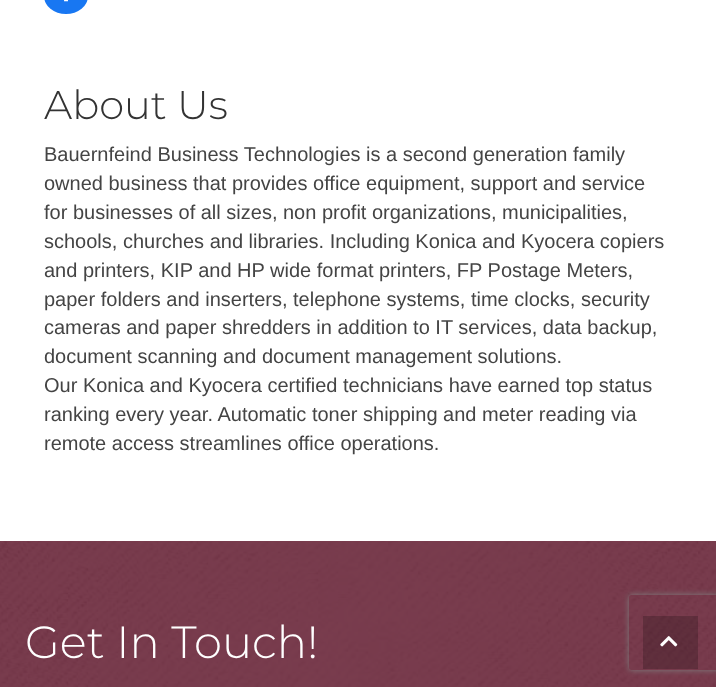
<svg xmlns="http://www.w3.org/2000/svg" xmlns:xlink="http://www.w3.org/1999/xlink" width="716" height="687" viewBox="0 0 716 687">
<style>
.cls-1{font:300 40px Montserrat;fill:#333333}
.cls-2{font:20px Liberation Sans;fill:#444444}
.cls-3{font:300 45px Montserrat;fill:#ffffff}
</style>
<defs>
<clipPath id="clip1"><path d="M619 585H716V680H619ZM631.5 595H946.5C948 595 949 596 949 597.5V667.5C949 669 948 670 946.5 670H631.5C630 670 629 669 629 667.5V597.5C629 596 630 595 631.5 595Z" clip-rule="evenodd"/></clipPath>
</defs>
<rect width="100%" height="100%" fill="#ffffff"/>
<rect fill="#1877f2" x="44" y="-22" width="44" height="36" rx="22"/>
<image xlink:href="image0.png" x="64" y="0" width="4" height="2"/>
<image xlink:href="image1.png" x="0" y="541" width="716" height="146"/>
<g clip-path="url(#clip1)">
<rect fill="#808080" filter="blur(3px)" x="629" y="595" width="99" height="75" rx="2.5"/>
</g>
<rect fill="#000000" fill-opacity="0.2" x="643" y="616" width="55" height="53"/>
<image xlink:href="image2.png" x="660" y="636" width="18" height="11"/>
<text class="cls-1" x="44" y="119">About Us</text>
<text class="cls-2"><tspan x="44" y="161">Bauernfeind Business Technologies is a second generation family</tspan><tspan x="44" y="190">owned business that provides office equipment, support and service</tspan><tspan x="44" y="219">for businesses of all sizes, non profit organizations, municipalities,</tspan><tspan x="44" y="248">schools, churches and libraries. Including Konica and Kyocera copiers</tspan><tspan x="44" y="277">and printers, KIP and HP wide format printers, FP Postage Meters,</tspan><tspan x="44" y="306">paper folders and inserters, telephone systems, time clocks, security</tspan><tspan x="44" y="334">cameras and paper shredders in addition to IT services, data backup,</tspan><tspan x="44" y="363">document scanning and document management solutions.</tspan><tspan x="44" y="392">Our Konica and Kyocera certified technicians have earned top status</tspan><tspan x="44" y="421">ranking every year. Automatic toner shipping and meter reading via</tspan><tspan x="44" y="450">remote access streamlines office operations.</tspan></text>
<text class="cls-3" x="25" y="658">Get In Touch!</text>
</svg>
